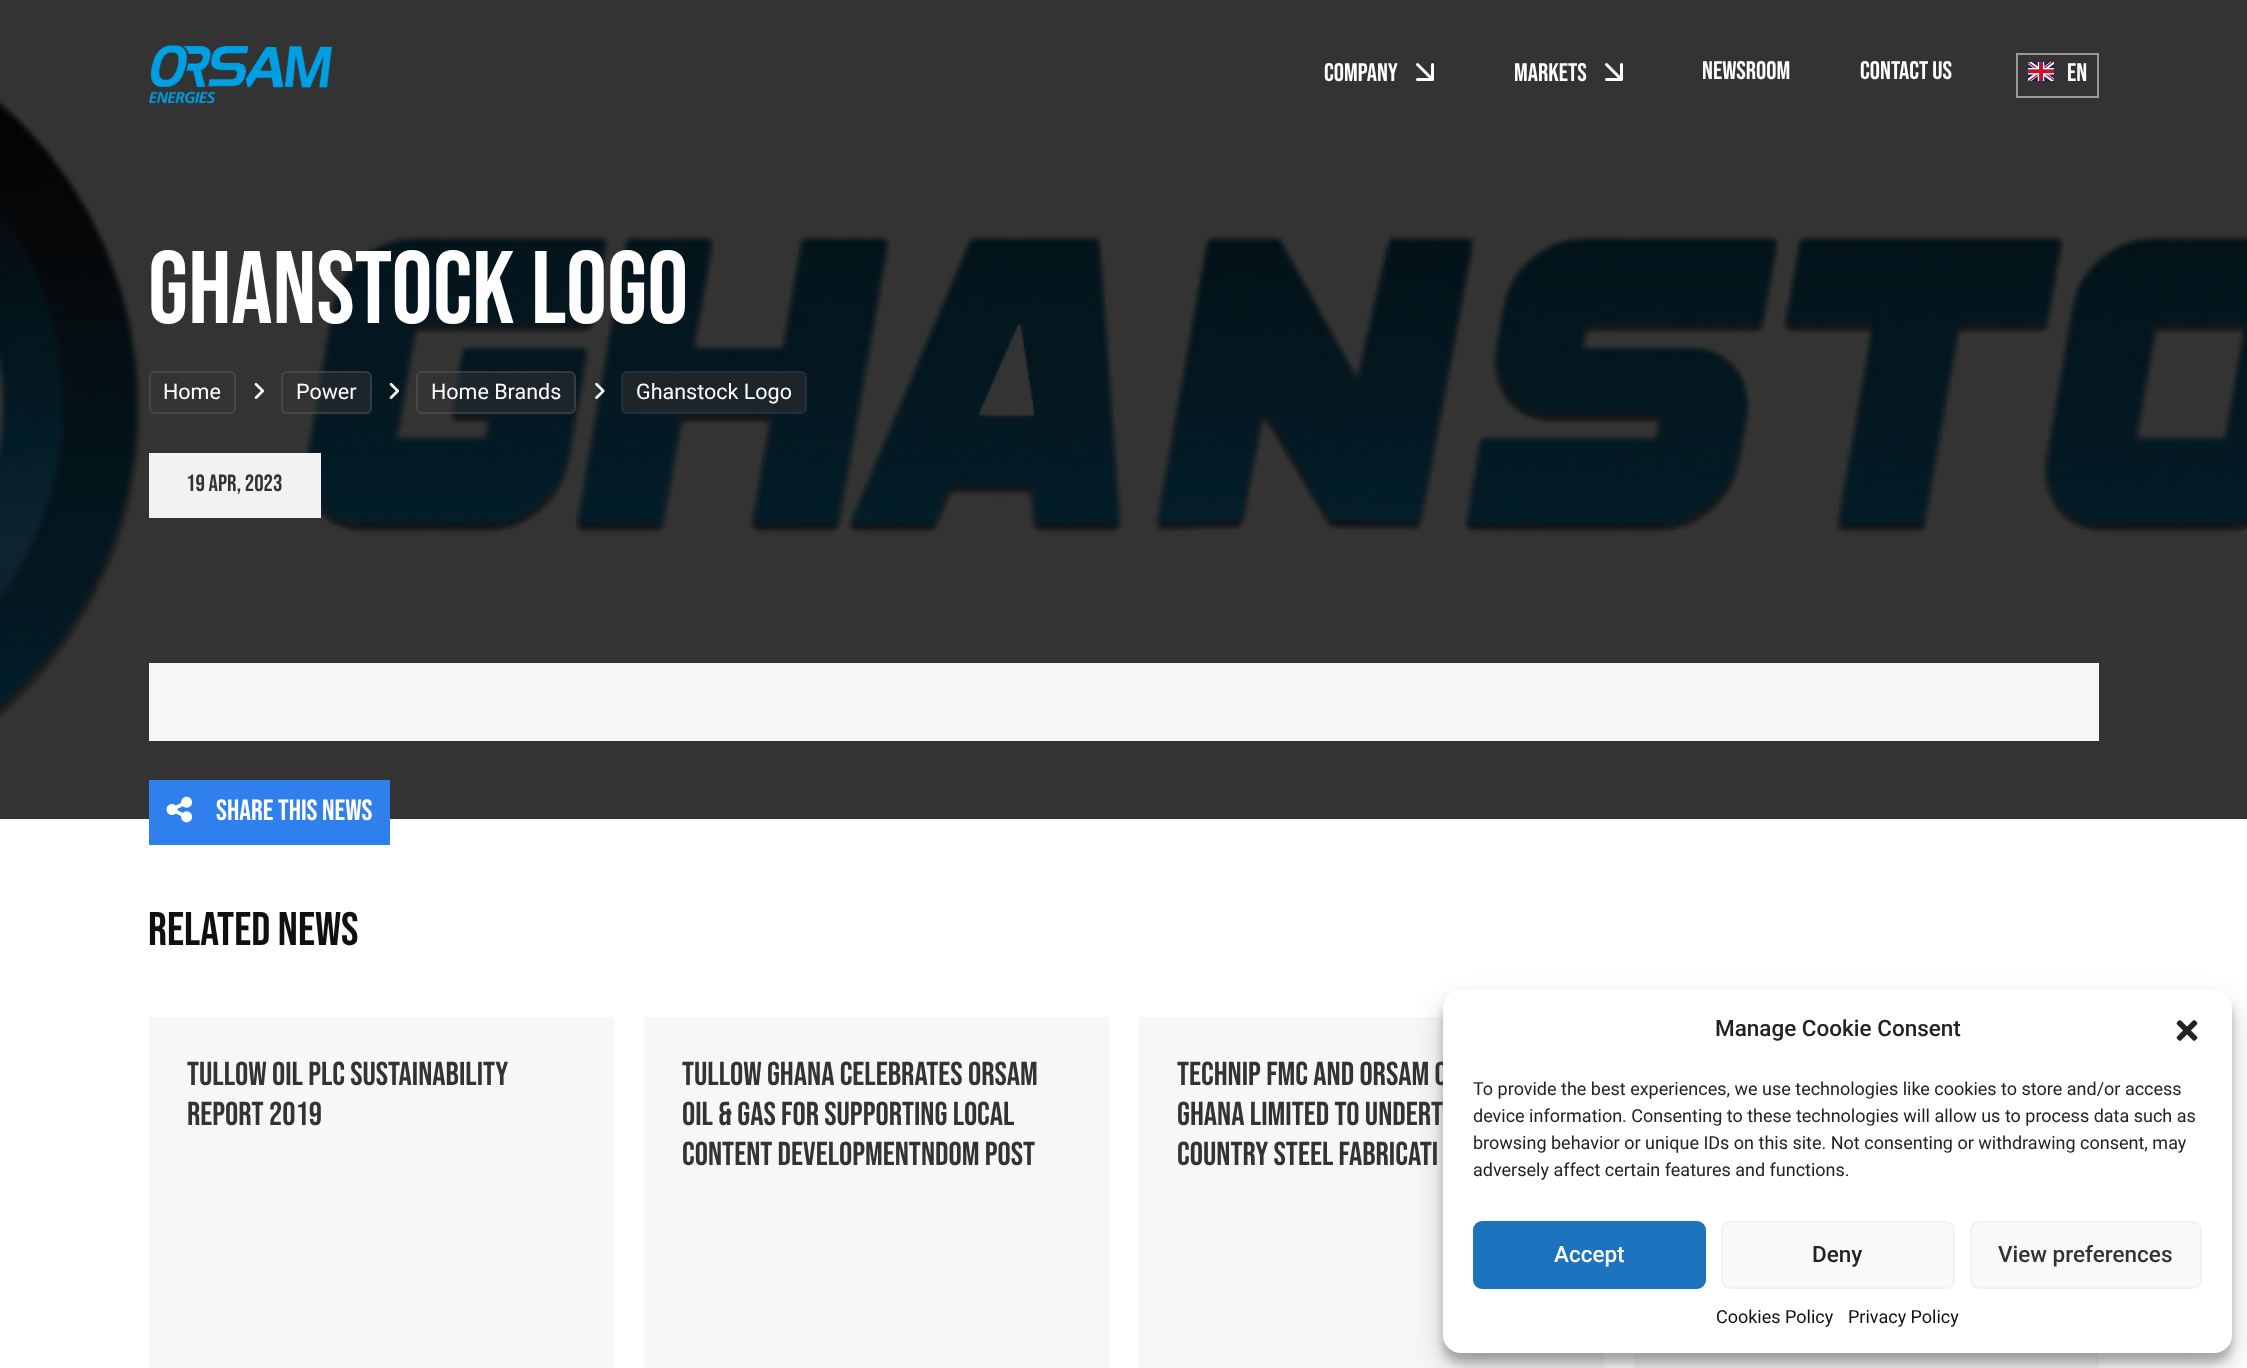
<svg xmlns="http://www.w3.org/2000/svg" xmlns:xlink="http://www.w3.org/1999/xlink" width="2247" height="1368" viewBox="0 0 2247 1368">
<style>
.cls-1{font:25.5px Bebas Neue;fill:#ffffff}
.cls-2{font:102.75px Bebas Neue;fill:#ffffff}
.cls-3{font:21.5px Roboto;fill:#ffffff}
.cls-4{font:23.5px Bebas Neue;fill:#333333}
.cls-5{font:29.25px Bebas Neue;fill:#ffffff}
.cls-6{font:47px Bebas Neue;fill:#101010}
.cls-7{font:33.1px Bebas Neue;fill:#333333}
.cls-8{font:500 22.5px Roboto;fill:#222222}
.cls-9{font:18px Roboto;fill:#222222}
.cls-10{font:500 22.5px Roboto;fill:#ffffff}
.cls-11{font:500 22.5px Roboto;fill:#333333}
.cls-12{font:18px Roboto;fill:#101010}
</style>
<rect width="100%" height="100%" fill="#ffffff"/>
<rect fill="#333333" x="0" y="0" width="2247" height="819"/>
<image xlink:href="image2.png" x="0" y="99" width="2247" height="621"/>
<image xlink:href="image0.png" x="148" y="45" width="184" height="59"/>
<path fill="none" stroke="#ffffff" stroke-width="3" stroke-linecap="round" stroke-linejoin="round" d="M1417.5 64.5L1432.5 79.5M1432.5 64.5V79.5H1417.5"/>
<path fill="none" stroke="#ffffff" stroke-width="3" stroke-linecap="round" stroke-linejoin="round" d="M1606.5 64.5L1621.5 79.5M1621.5 64.5V79.5H1606.5"/>
<rect fill="none" stroke="#999999" stroke-width="2" x="2017" y="54" width="81" height="43"/>
<image xlink:href="image1.png" x="2028" y="62" width="26" height="19"/>
<rect fill="none" stroke="#474747" stroke-width="2" x="150" y="372" width="85" height="41" rx="5"/>
<image xlink:href="image3.png" x="254" y="383" width="10" height="16"/>
<rect fill="#333333" fill-opacity="0.5" x="281" y="371" width="91" height="43" rx="6"/>
<rect fill="none" stroke="#ffffff" stroke-opacity="0.1" stroke-width="2" x="282" y="372" width="89" height="41" rx="5"/>
<image xlink:href="image4.png" x="389" y="383" width="10" height="16"/>
<rect fill="#333333" fill-opacity="0.5" x="416" y="371" width="160" height="43" rx="6"/>
<rect fill="none" stroke="#ffffff" stroke-opacity="0.1" stroke-width="2" x="417" y="372" width="158" height="41" rx="5"/>
<image xlink:href="image5.png" x="595" y="382" width="10" height="17"/>
<rect fill="#333333" fill-opacity="0.5" x="621" y="371" width="186" height="43" rx="6"/>
<rect fill="none" stroke="#2f80ed" stroke-opacity="0.1" stroke-width="2" x="622" y="372" width="184" height="41" rx="5"/>
<rect fill="#f2f2f2" x="149" y="453" width="172" height="65"/>
<rect fill="#f7f7f7" x="149" y="663" width="1950" height="78"/>
<rect fill="#2f80ed" x="149" y="780" width="241" height="65"/>
<image xlink:href="image6.png" x="166" y="796" width="27" height="27"/>
<rect fill="#f7f7f7" x="149" y="1017" width="465" height="351"/>
<rect fill="#f7f7f7" x="644" y="1017" width="465" height="351"/>
<rect fill="#f7f7f7" x="1139" y="1017" width="465" height="351"/>
<rect fill="#f7f7f7" x="1634" y="1353" width="465" height="15"/>
<rect fill="#000000" fill-opacity="0.23" filter="blur(4.5px)" x="1443" y="999" width="789" height="363" rx="18"/>
<rect fill="#000000" fill-opacity="0.19" filter="blur(15px)" x="1443" y="1005" width="789" height="363" rx="18"/>
<text class="cls-1" x="1324" y="81">Company</text>
<text class="cls-1" x="1514" y="81">Markets</text>
<text class="cls-1" x="1702" y="79">Newsroom</text>
<text class="cls-1" x="1860" y="79">Contact Us</text>
<text class="cls-1" x="2067" y="81">EN</text>
<text class="cls-2" x="148" y="323">Ghanstock Logo</text>
<text class="cls-3" x="163" y="399">Home</text>
<text class="cls-3" x="296" y="399">Power</text>
<text class="cls-3" x="431" y="399">Home Brands</text>
<text class="cls-3" x="636" y="399">Ghanstock Logo</text>
<text class="cls-4" x="186" y="491">19 Apr, 2023</text>
<text class="cls-5" x="216" y="820">Share this news</text>
<text class="cls-6" x="148" y="945">Related News</text>
<text class="cls-7"><tspan x="187" y="1085">Tullow Oil plc Sustainability</tspan><tspan x="187" y="1125">Report 2019</tspan></text>
<text class="cls-7"><tspan x="682" y="1085">Tullow Ghana celebrates Orsam</tspan><tspan x="682" y="1125">Oil &amp; Gas for Supporting Local</tspan><tspan x="682" y="1165">Content Developmentndom post</tspan></text>
<text class="cls-7"><tspan x="1177" y="1085">Technip FMC and Orsam O</tspan><tspan x="1177" y="1125">Ghana Limited to Undert</tspan><tspan x="1177" y="1165">Country Steel Fabricati</tspan></text>
<rect fill="#ffffff" x="1443" y="990" width="789" height="363" rx="18"/>
<text class="cls-8" x="1715" y="1036">Manage Cookie Consent</text>
<image xlink:href="image7.png" x="2176" y="1020" width="22" height="21"/>
<text class="cls-9"><tspan x="1473" y="1095">To provide the best experiences, we use technologies like cookies to store and/or access</tspan><tspan x="1473" y="1122">device information. Consenting to these technologies will allow us to process data such as</tspan><tspan x="1473" y="1149">browsing behavior or unique IDs on this site. Not consenting or withdrawing consent, may</tspan><tspan x="1473" y="1176">adversely affect certain features and functions.</tspan></text>
<rect fill="#1e73be" stroke="#1e73be" stroke-width="2" x="1474" y="1222" width="231" height="66" rx="8"/>
<text class="cls-10" x="1554" y="1262">Accept</text>
<rect fill="#f9f9f9" stroke="#f2f2f2" stroke-width="2" x="1722" y="1222" width="232" height="66" rx="8"/>
<text class="cls-8" x="1812" y="1262">Deny</text>
<rect fill="#f9f9f9" stroke="#f2f2f2" stroke-width="2" x="1971" y="1222" width="230" height="66" rx="8"/>
<text class="cls-11" x="1998" y="1262">View preferences</text>
<text class="cls-12" x="1716" y="1323">Cookies Policy</text>
<text class="cls-12" x="1848" y="1323">Privacy Policy</text>
</svg>
